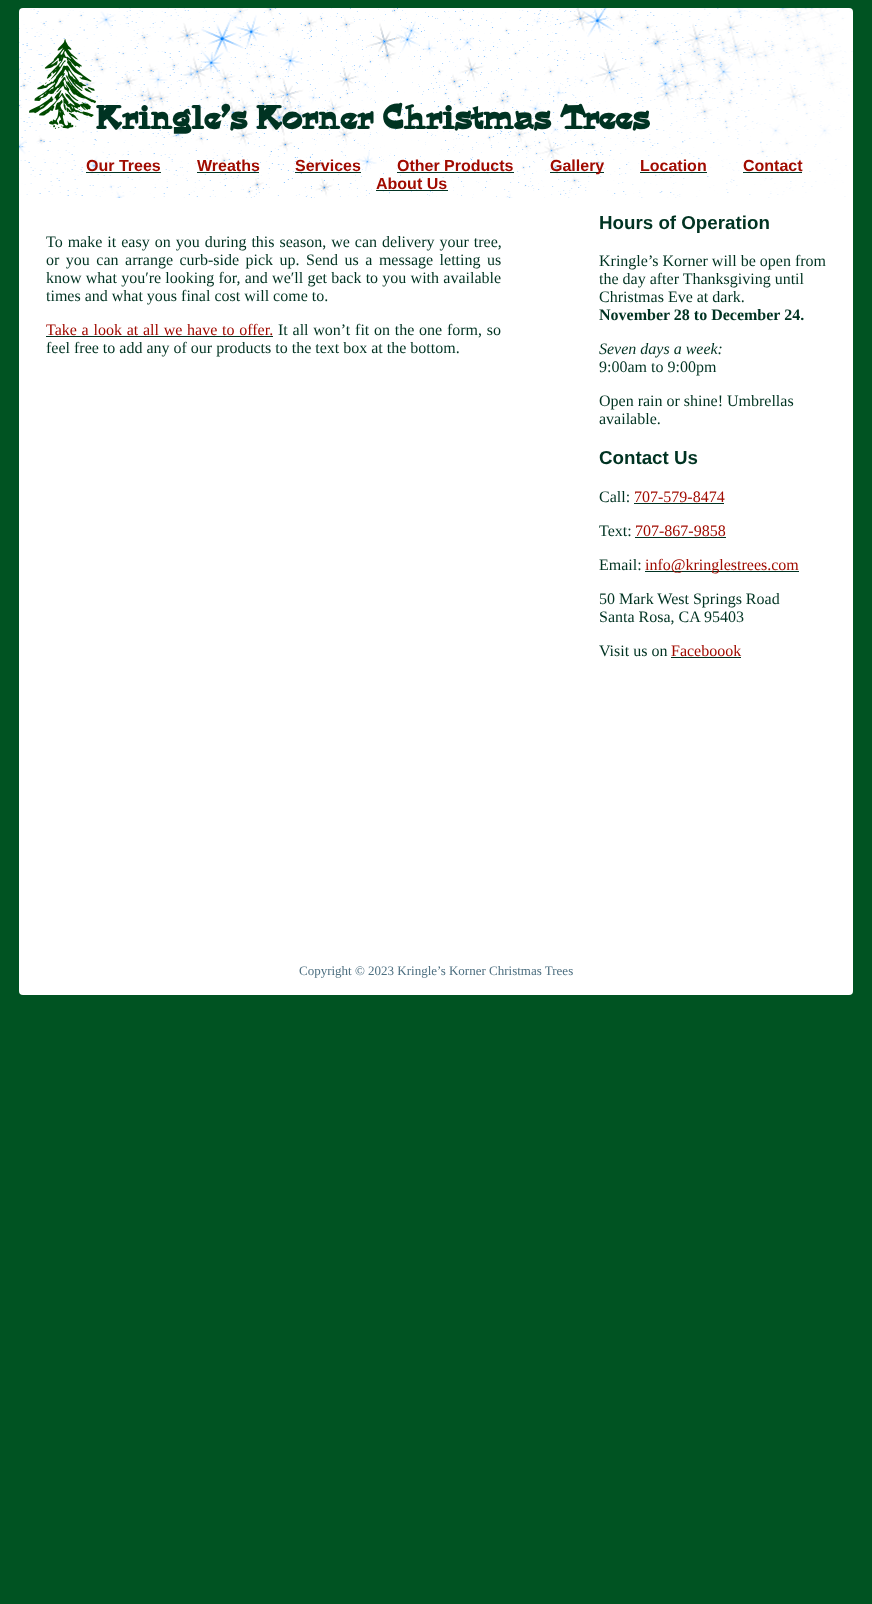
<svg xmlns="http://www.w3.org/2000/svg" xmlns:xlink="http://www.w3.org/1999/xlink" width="872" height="1604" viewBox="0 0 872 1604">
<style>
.cls-1{font:bold 32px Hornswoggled;fill:#003322}
.cls-2{font:bold 16px Liberation Sans;fill:#a00b00}
.cls-3{font:16px Liberation Serif;fill:#003322}
.cls-4{font:16px Liberation Serif;fill:#a00b00}
.cls-5{font:bold 18.75px Liberation Sans;fill:#003322}
.cls-6{font:bold 16px Liberation Serif;fill:#003322}
.cls-7{font:italic 16px Liberation Serif;fill:#003322}
.cls-8{font:13px Liberation Serif;fill:#4d6f80}
</style>
<rect width="100%" height="100%" fill="#005322"/>
<rect fill="#ffffff" x="19" y="8" width="834" height="987" rx="4"/>
<image xlink:href="image0.png" x="19" y="8" width="834" height="190"/>
<image xlink:href="image1.png" x="29" y="39" width="67" height="90"/>
<rect fill="#003322" x="86" y="172" width="75" height="1"/>
<rect fill="#003322" x="197" y="172" width="62" height="1"/>
<rect fill="#003322" x="295" y="172" width="66" height="1"/>
<rect fill="#003322" x="397" y="172" width="117" height="1"/>
<rect fill="#003322" x="550" y="172" width="54" height="1"/>
<rect fill="#003322" x="640" y="172" width="67" height="1"/>
<rect fill="#003322" x="743" y="172" width="59" height="1"/>
<rect fill="#003322" x="376" y="190" width="72" height="1"/>
<rect fill="#003322" x="46" y="336" width="227" height="1"/>
<rect fill="#003322" x="634" y="503" width="90" height="1"/>
<rect fill="#003322" x="635" y="537" width="91" height="1"/>
<rect fill="#003322" x="645" y="571" width="154" height="1"/>
<rect fill="#003322" x="671" y="657" width="70" height="1"/>
<text class="cls-1" x="96" y="129">Kringle’s Korner Christmas Trees</text>
<text class="cls-2" x="86" y="171">Our Trees</text>
<text class="cls-2" x="197" y="171">Wreaths</text>
<text class="cls-2" x="295" y="171">Services</text>
<text class="cls-2" x="397" y="171">Other Products</text>
<text class="cls-2" x="550" y="171">Gallery</text>
<text class="cls-2" x="640" y="171">Location</text>
<text class="cls-2" x="743" y="171">Contact</text>
<text class="cls-2" x="376" y="189">About Us</text>
<text class="cls-3"><tspan x="46" y="247" word-spacing="1">To make it easy on you during this season, we can delivery your tree,</tspan><tspan x="46" y="265" word-spacing="2.5">or you can arrange curb-side pick up. Send us a message letting us</tspan><tspan x="46" y="283" word-spacing="0.25">know what you′re looking for, and we′ll get back to you with available</tspan><tspan x="46" y="301">times and what yous final cost will come to.</tspan></text>
<text class="cls-4" x="46" y="335" word-spacing="0.75">Take a look at all we have to offer.</text>
<text class="cls-3" x="278" y="335" word-spacing="0.75">It all won’t fit on the one form, so</text>
<text class="cls-3" x="46" y="353">feel free to add any of our products to the text box at the bottom.</text>
<text class="cls-5" x="599" y="229">Hours of Operation</text>
<text class="cls-3"><tspan x="599" y="266">Kringle’s Korner will be open from</tspan><tspan x="599" y="284">the day after Thanksgiving until</tspan><tspan x="599" y="302">Christmas Eve at dark.</tspan></text>
<text class="cls-6" x="599" y="320">November 28 to December 24.</text>
<text class="cls-7" x="599" y="354">Seven days a week:</text>
<text class="cls-3" x="599" y="372">9:00am to 9:00pm</text>
<text class="cls-3"><tspan x="599" y="406">Open rain or shine! Umbrellas</tspan><tspan x="599" y="424">available.</tspan></text>
<text class="cls-5" x="599" y="464">Contact Us</text>
<text class="cls-3" x="599" y="502">Call:</text>
<text class="cls-4" x="634" y="502">707-579-8474</text>
<text class="cls-3" x="599" y="536">Text:</text>
<text class="cls-4" x="635" y="536">707-867-9858</text>
<text class="cls-3" x="599" y="570">Email:</text>
<text class="cls-4" x="645" y="570">info@kringlestrees.com</text>
<text class="cls-3"><tspan x="599" y="604">50 Mark West Springs Road</tspan><tspan x="599" y="622">Santa Rosa, CA</tspan></text>
<text class="cls-3" x="704" y="622">95403</text>
<text class="cls-3" x="599" y="656">Visit us on</text>
<text class="cls-4" x="671" y="656">Faceboook</text>
<text class="cls-8" x="299" y="975">Copyright © 2023 Kringle’s Korner Christmas Trees</text>
</svg>
